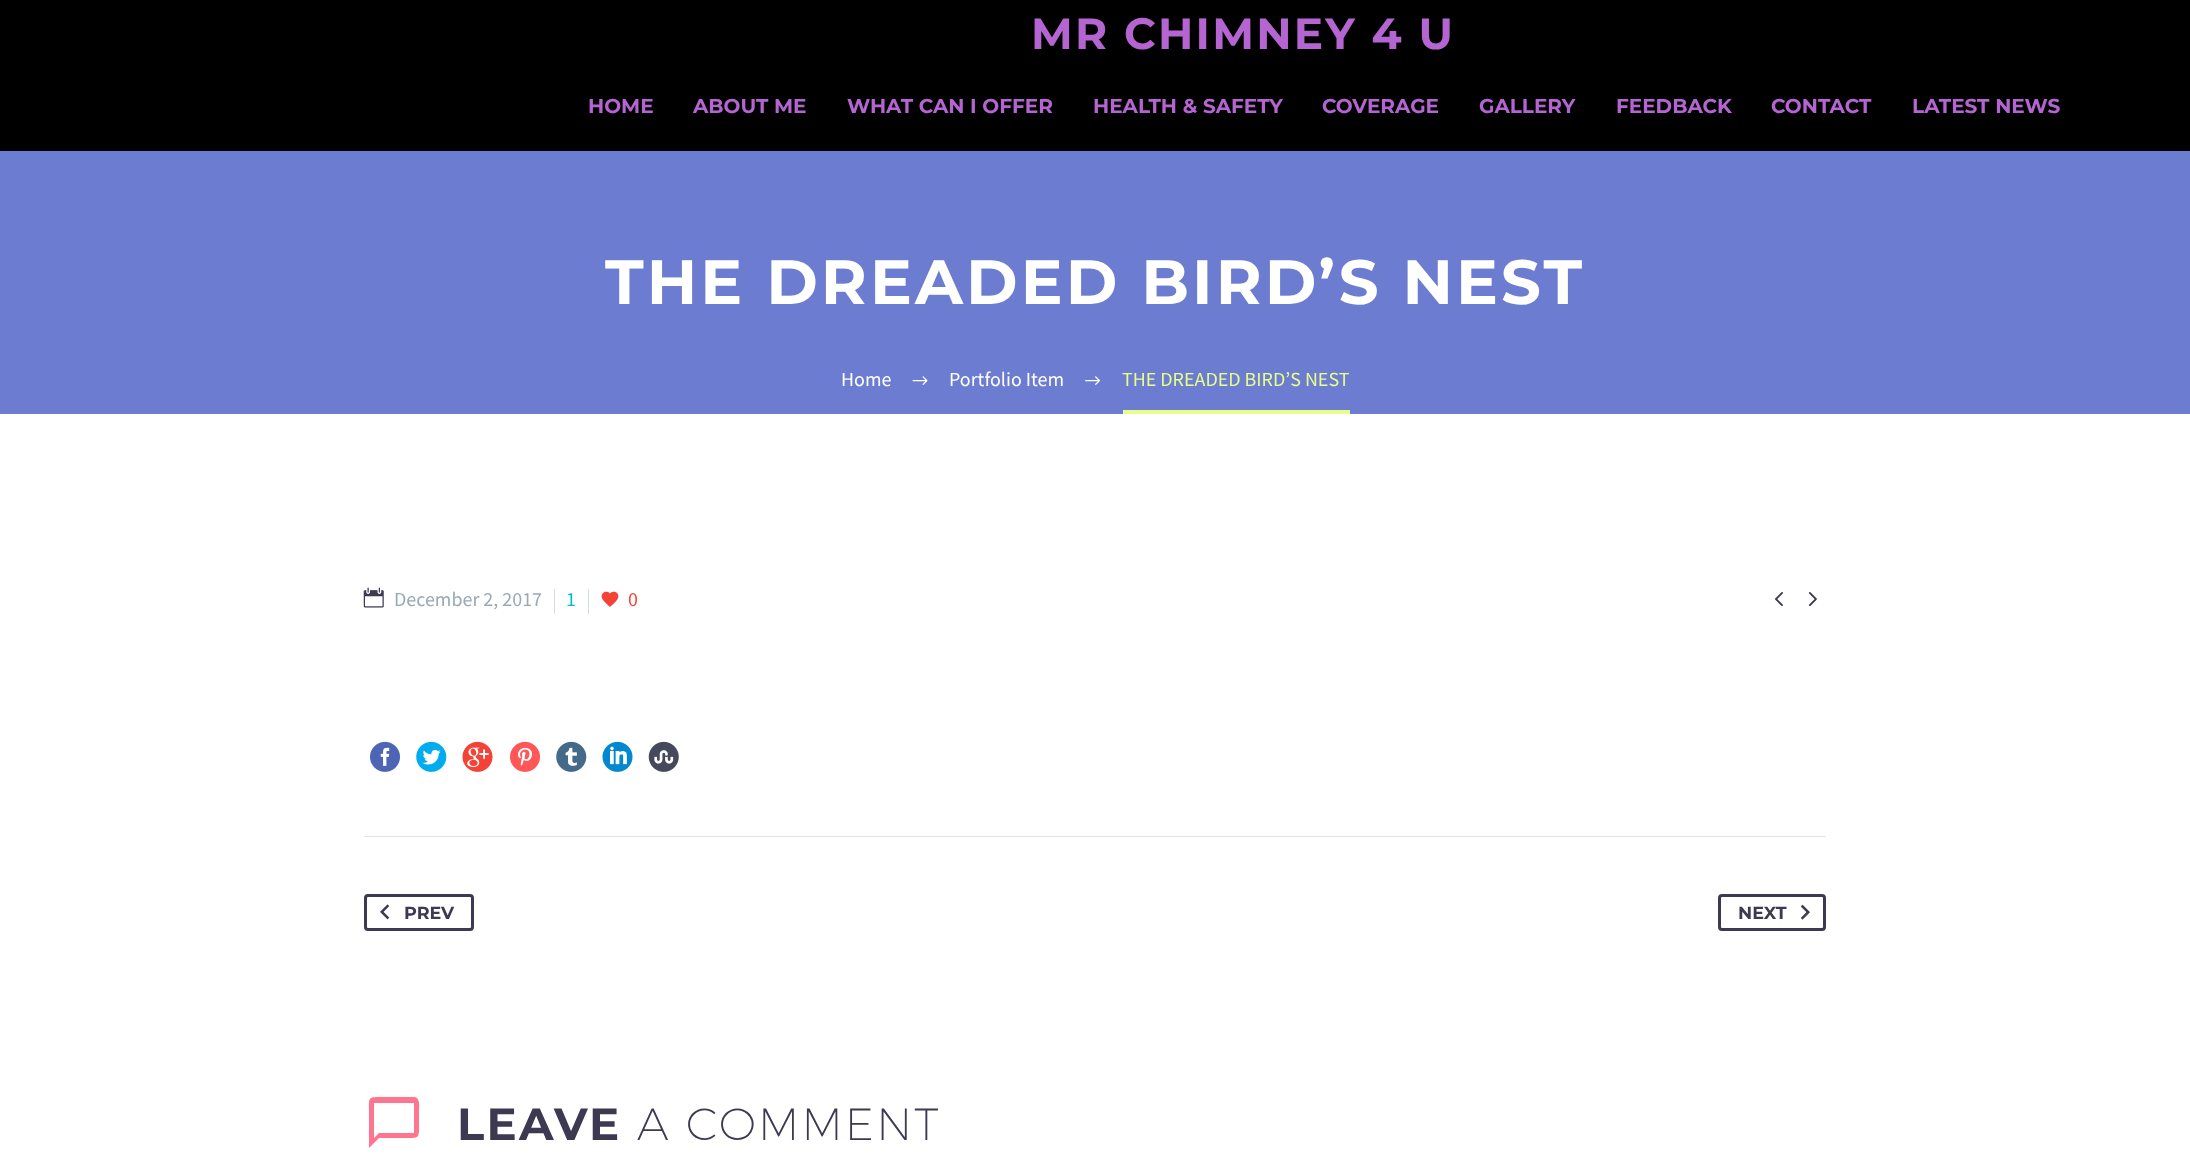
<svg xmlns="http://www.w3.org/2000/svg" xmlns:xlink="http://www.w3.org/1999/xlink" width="2190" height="1167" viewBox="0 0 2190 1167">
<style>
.cls-1{font:bold 43.75px Montserrat;letter-spacing:2.25px;fill:#b565d1}
.cls-2{font:bold 20px Montserrat;fill:#b565d1}
.cls-3{font:bold 62.5px Montserrat;letter-spacing:3.1px;fill:#ffffff}
.cls-4{font:20px Source Sans Pro;fill:#ffffff}
.cls-5{font:20px Source Sans Pro;fill:#e7ff89}
.cls-6{font:20px Source Sans Pro;fill:#99a9b5}
.cls-7{font:20px Source Sans Pro;fill:#00bcd4}
.cls-8{font:20px Source Sans Pro;fill:#f44336}
.cls-9{font:bold 17.5px Montserrat;fill:#3c3950}
.cls-10{font:bold 45px Montserrat;letter-spacing:2.25px;fill:#3c3950}
.cls-11{font:200 45px Montserrat;letter-spacing:2.25px;fill:#3c3950}
</style>
<rect width="100%" height="100%" fill="#000000"/>
<rect fill="#6c7cd0" x="0" y="151" width="2190" height="263"/>
<image xlink:href="image0.png" x="912" y="376" width="16" height="9"/>
<image xlink:href="image1.png" x="1085" y="376" width="15" height="9"/>
<rect fill="#e7ff89" x="1123" y="410" width="227" height="4"/>
<rect fill="#ffffff" x="0" y="414" width="2190" height="753"/>
<image xlink:href="image2.png" x="363" y="587" width="21" height="21"/>
<rect fill="#d4dee1" x="554" y="589" width="1" height="25"/>
<rect fill="#d4dee1" x="588" y="589" width="1" height="25"/>
<image xlink:href="image3.png" x="601" y="591" width="18" height="16"/>
<image xlink:href="image4.png" x="1775" y="592" width="8" height="14"/>
<image xlink:href="image5.png" x="1808" y="592" width="9" height="15"/>
<image xlink:href="image6.png" x="370" y="741" width="30" height="31"/>
<image xlink:href="image7.png" x="416" y="741" width="31" height="31"/>
<image xlink:href="image8.png" x="462" y="741" width="31" height="31"/>
<image xlink:href="image9.png" x="510" y="741" width="30" height="31"/>
<image xlink:href="image10.png" x="556" y="741" width="31" height="31"/>
<image xlink:href="image11.png" x="602" y="741" width="31" height="31"/>
<image xlink:href="image12.png" x="648" y="741" width="31" height="31"/>
<rect fill="#dfe5e8" x="364" y="836" width="1462" height="1"/>
<rect fill="none" stroke="#3c3950" stroke-width="3" x="365.5" y="895.5" width="107" height="34" rx="2.5"/>
<image xlink:href="image13.png" x="380" y="904" width="10" height="16"/>
<rect fill="none" stroke="#3c3950" stroke-width="3" x="1719.5" y="895.5" width="105" height="34" rx="2.5"/>
<image xlink:href="image14.png" x="1800" y="904" width="10" height="16"/>
<path fill="#ff758f" d="M414 1097H380C368 1097 369 1098 369 1110V1148L379 1138H408C418 1138 419 1138 419 1128V1113C419 1109 421 1097 414 1097ZM414 1133H379L374 1138V1103H414Z"/>
<text class="cls-1" x="1031" y="49">MR CHIMNEY 4 U</text>
<text class="cls-2" x="588" y="113">HOME</text>
<text class="cls-2" x="693" y="113">ABOUT ME</text>
<text class="cls-2" x="847" y="113">WHAT CAN I OFFER</text>
<text class="cls-2" x="1093" y="113">HEALTH &amp; SAFETY</text>
<text class="cls-2" x="1322" y="113">COVERAGE</text>
<text class="cls-2" x="1479" y="113">GALLERY</text>
<text class="cls-2" x="1616" y="113">FEEDBACK</text>
<text class="cls-2" x="1771" y="113">CONTACT</text>
<text class="cls-2" x="1912" y="113">LATEST NEWS</text>
<text class="cls-3" x="605" y="304">THE DREADED BIRD’S NEST</text>
<text class="cls-4" x="841" y="386">Home</text>
<text class="cls-4" x="949" y="386">Portfolio Item</text>
<text class="cls-5" x="1122" y="386">THE DREADED BIRD’S NEST</text>
<text class="cls-6" x="394" y="606">December 2, 2017</text>
<text class="cls-7" x="566" y="606">1</text>
<text class="cls-8" x="628" y="606">0</text>
<text class="cls-9" x="404" y="919">PREV</text>
<text class="cls-9" x="1738" y="919">NEXT</text>
<text class="cls-10" x="457" y="1140">LEAVE</text>
<text class="cls-11" x="637" y="1140">A COMMENT</text>
</svg>
